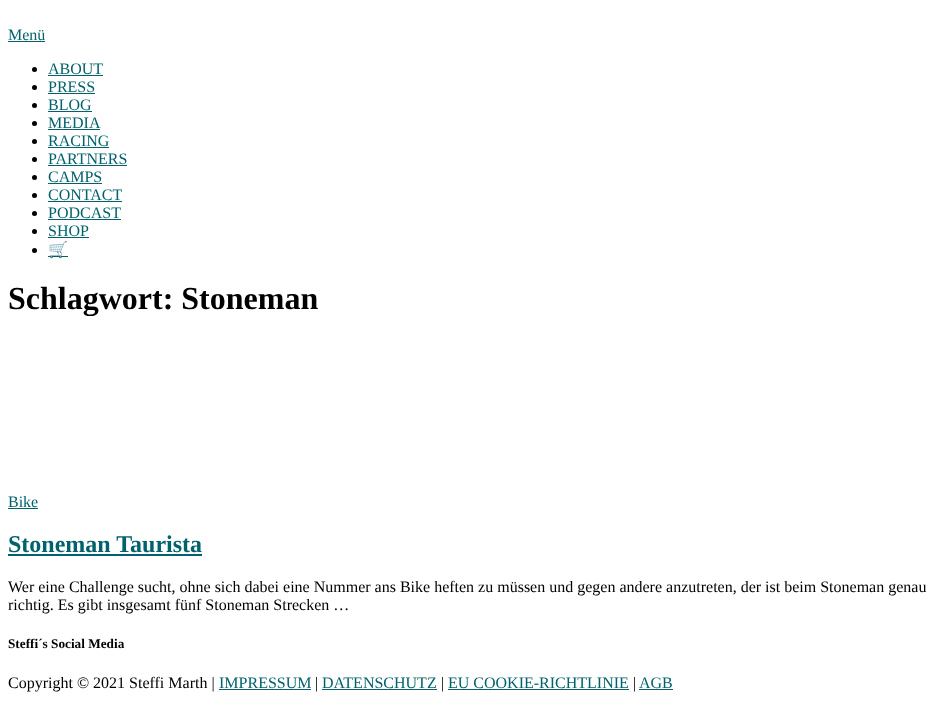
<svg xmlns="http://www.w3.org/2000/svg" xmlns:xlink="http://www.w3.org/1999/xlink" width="944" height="711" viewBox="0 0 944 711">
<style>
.cls-1{font:16px Liberation Serif;fill:#01626d}
.cls-2{font:16px Noto Color Emoji;fill:#01626d}
.cls-3{font:bold 32px Liberation Serif;fill:#000000}
.cls-4{font:bold 24px Liberation Serif;fill:#01626d}
.cls-5{font:16px Liberation Serif;fill:#000000}
.cls-6{font:bold 13.25px Liberation Serif;fill:#000000}
</style>
<rect width="100%" height="100%" fill="#ffffff"/>
<rect fill="#01626d" x="8" y="41" width="37" height="1"/>
<circle fill="#000000" cx="34.5" cy="69.5" r="2.5"/>
<rect fill="#01626d" x="48" y="75" width="55" height="1"/>
<circle fill="#000000" cx="34.5" cy="87.5" r="2.5"/>
<rect fill="#01626d" x="48" y="93" width="47" height="1"/>
<circle fill="#000000" cx="34.5" cy="105.5" r="2.5"/>
<rect fill="#01626d" x="48" y="111" width="44" height="1"/>
<circle fill="#000000" cx="34.5" cy="123.5" r="2.5"/>
<rect fill="#01626d" x="48" y="129" width="52" height="1"/>
<circle fill="#000000" cx="34.5" cy="141.5" r="2.5"/>
<rect fill="#01626d" x="48" y="147" width="61" height="1"/>
<circle fill="#000000" cx="34.5" cy="159.5" r="2.5"/>
<rect fill="#01626d" x="48" y="165" width="79" height="1"/>
<circle fill="#000000" cx="34.5" cy="177.5" r="2.5"/>
<rect fill="#01626d" x="48" y="183" width="54" height="1"/>
<circle fill="#000000" cx="34.5" cy="195.5" r="2.5"/>
<rect fill="#01626d" x="48" y="201" width="74" height="1"/>
<circle fill="#000000" cx="34.5" cy="213.5" r="2.5"/>
<rect fill="#01626d" x="48" y="219" width="73" height="1"/>
<circle fill="#000000" cx="34.5" cy="231.5" r="2.5"/>
<rect fill="#01626d" x="48" y="237" width="41" height="1"/>
<circle fill="#000000" cx="34.5" cy="250.5" r="2.5"/>
<rect fill="#01626d" x="48" y="256" width="20" height="1"/>
<rect fill="#01626d" x="8" y="508" width="30" height="1"/>
<rect fill="#01626d" x="8" y="554" width="194" height="2"/>
<rect fill="#01626d" x="219" y="689" width="92" height="1"/>
<rect fill="#01626d" x="322" y="689" width="115" height="1"/>
<rect fill="#01626d" x="448" y="689" width="181" height="1"/>
<rect fill="#01626d" x="639" y="689" width="34" height="1"/>
<text class="cls-1" x="8" y="40">Menü</text>
<text class="cls-1"><tspan x="48" y="74">ABOUT</tspan><tspan x="48" y="92">PRESS</tspan><tspan x="48" y="110">BLOG</tspan><tspan x="48" y="128">MEDIA</tspan><tspan x="48" y="146">RACING</tspan><tspan x="48" y="164">PARTNERS</tspan><tspan x="48" y="182">CAMPS</tspan><tspan x="48" y="200">CONTACT</tspan><tspan x="48" y="218">PODCAST</tspan><tspan x="48" y="236">SHOP</tspan></text>
<text class="cls-2" x="48" y="255">🛒</text>
<text class="cls-3" x="8" y="309">Schlagwort: Stoneman</text>
<text class="cls-1" x="8" y="507">Bike</text>
<text class="cls-4" x="8" y="552">Stoneman Taurista</text>
<text class="cls-5"><tspan x="8" y="592">Wer eine Challenge sucht, ohne sich dabei eine Nummer ans Bike heften zu müssen und gegen andere anzutreten, der ist beim Stoneman genau</tspan><tspan x="8" y="610">richtig. Es gibt insgesamt fünf Stoneman Strecken …</tspan></text>
<text class="cls-6" x="8" y="648">Steffi´s Social Media</text>
<text class="cls-5" x="8" y="688">Copyright © 2021 Steffi Marth |</text>
<text class="cls-1" x="219" y="688">IMPRESSUM</text>
<text class="cls-5" x="315" y="688">|</text>
<text class="cls-1" x="322" y="688">DATENSCHUTZ</text>
<text class="cls-5" x="441" y="688">|</text>
<text class="cls-1" x="448" y="688">EU COOKIE-RICHTLINIE</text>
<text class="cls-5" x="633" y="688">|</text>
<text class="cls-1" x="639" y="688">AGB</text>
</svg>
